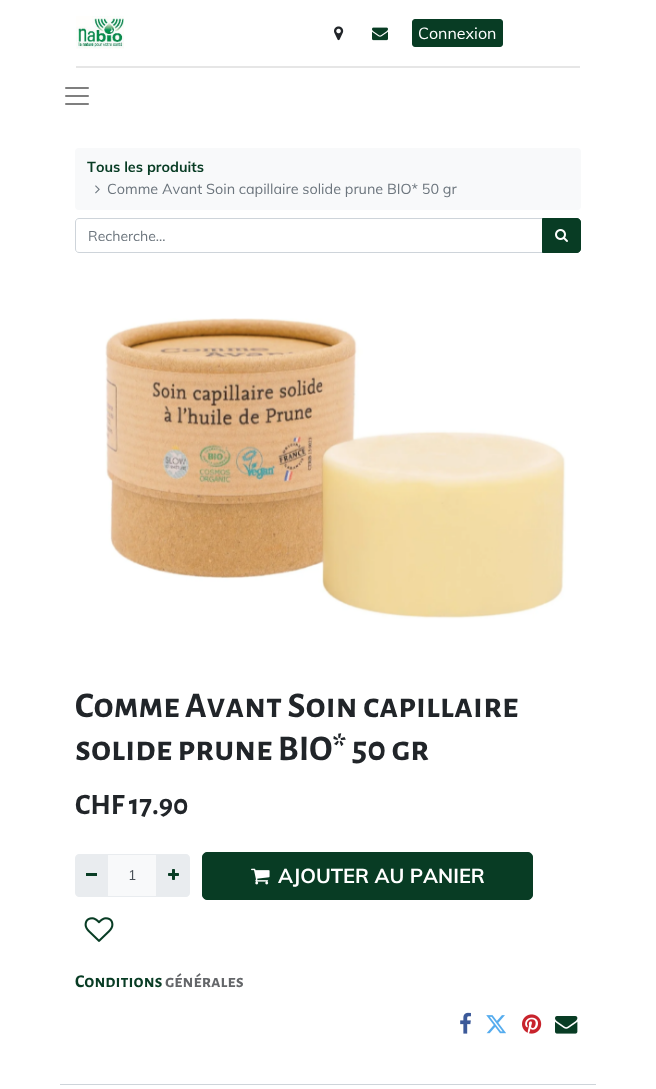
<svg xmlns="http://www.w3.org/2000/svg" xmlns:xlink="http://www.w3.org/1999/xlink" width="656" height="1089" viewBox="0 0 656 1089">
<style>*{font-kerning:none!important;font-variant-ligatures:none!important}</style>
<style>
.cls-1{font:16px Muli;fill:#ffffff}
.cls-2{font:bold 14.4px Muli;fill:#083c24}
.cls-3{font:14.4px Muli;fill:#6c757d}
.cls-4{font:14px Muli;fill:#6c757d}
.cls-5{font:bold 36px Alegreya Sans SC;fill:#212529}
.cls-6{font:bold 29.5px Alegreya Sans SC;fill:#212529}
.cls-7{font:14px Muli;fill:#495057}
.cls-8{font:bold 20px Muli;fill:#ffffff}
.cls-9{font:bold 18px Alegreya Sans SC;fill:#083c24}
.cls-10{font:bold 18px Alegreya Sans SC;fill:#646669}
</style>
<rect width="100%" height="100%" fill="#ffffff"/>
<rect fill="#e6e6e6" x="76" y="66" width="504" height="2"/>
<image xlink:href="image0.png" x="76" y="16" width="48" height="33"/>
<image xlink:href="image1.png" x="334" y="26" width="10" height="15"/>
<image xlink:href="image2.png" x="372" y="27" width="16" height="14"/>
<rect fill="#083c24" stroke="#083c24" x="412.5" y="19.5" width="90" height="27" rx="2.5"/>
<image xlink:href="image3.png" x="65" y="87" width="24" height="18"/>
<rect fill="#f8f9fa" x="75" y="148" width="506" height="62" rx="4"/>
<image xlink:href="image4.png" x="95" y="185" width="5" height="9"/>
<path fill="none" stroke="#ced4da" d="M79 218.5H542.5V252.5H79C77 252.5 75.5 251 75.5 249V222C75.5 220 77 218.5 79 218.5Z"/>
<path fill="#083c24" stroke="#083c24" d="M542.5 218.5H577C579 218.5 580.5 220 580.5 222V249C580.5 251 579 252.5 577 252.5H542.5Z"/>
<image xlink:href="image5.png" x="555" y="229" width="13" height="13"/>
<image xlink:href="image6.png" x="105" y="318" width="461" height="301"/>
<rect fill="#f8f9fa" stroke="#e9ecef" x="107.5" y="854.5" width="49" height="42"/>
<path fill="#e9ecef" d="M79 854H108V897H79C77 897 75 895 75 893V858C75 856 77 854 79 854Z"/>
<rect fill="#083c24" x="86" y="873" width="11" height="3"/>
<path fill="#e9ecef" d="M156 854H186C188 854 190 856 190 858V893C190 895 188 897 186 897H156Z"/>
<image xlink:href="image7.png" x="168" y="869" width="11" height="11"/>
<rect fill="#083c24" stroke="#083c24" x="202.5" y="852.5" width="330" height="47" rx="4.5"/>
<image xlink:href="image8.png" x="251" y="868" width="19" height="17"/>
<image xlink:href="image9.png" x="84" y="917" width="30" height="25"/>
<image xlink:href="image10.png" x="460" y="1012" width="11" height="22"/>
<image xlink:href="image11.png" x="486" y="1015" width="20" height="19"/>
<image xlink:href="image12.png" x="522" y="1014" width="20" height="20"/>
<image xlink:href="image13.png" x="555" y="1016" width="23" height="18"/>
<rect fill="#ced4da" x="60" y="1084" width="536" height="1"/>
<text class="cls-1" x="418" y="39">Connexion</text>
<text class="cls-2" x="87" y="172">Tous les produits</text>
<text class="cls-3" x="107" y="194">Comme Avant Soin capillaire solide prune BIO* 50 gr</text>
<text class="cls-4" x="88" y="241">Recherche…</text>
<text class="cls-5"><tspan x="75" y="717">Comme Avant Soin capillaire</tspan><tspan x="75" y="760">solide prune BIO* 50 gr</tspan></text>
<text class="cls-6" x="75" y="814">CHF 17.90</text>
<text class="cls-7" x="128" y="880">1</text>
<text class="cls-8" x="278" y="883">AJOUTER AU PANIER</text>
<text class="cls-9" x="75" y="987">Conditions </text>
<text class="cls-10" x="165" y="987">générales</text>
</svg>
